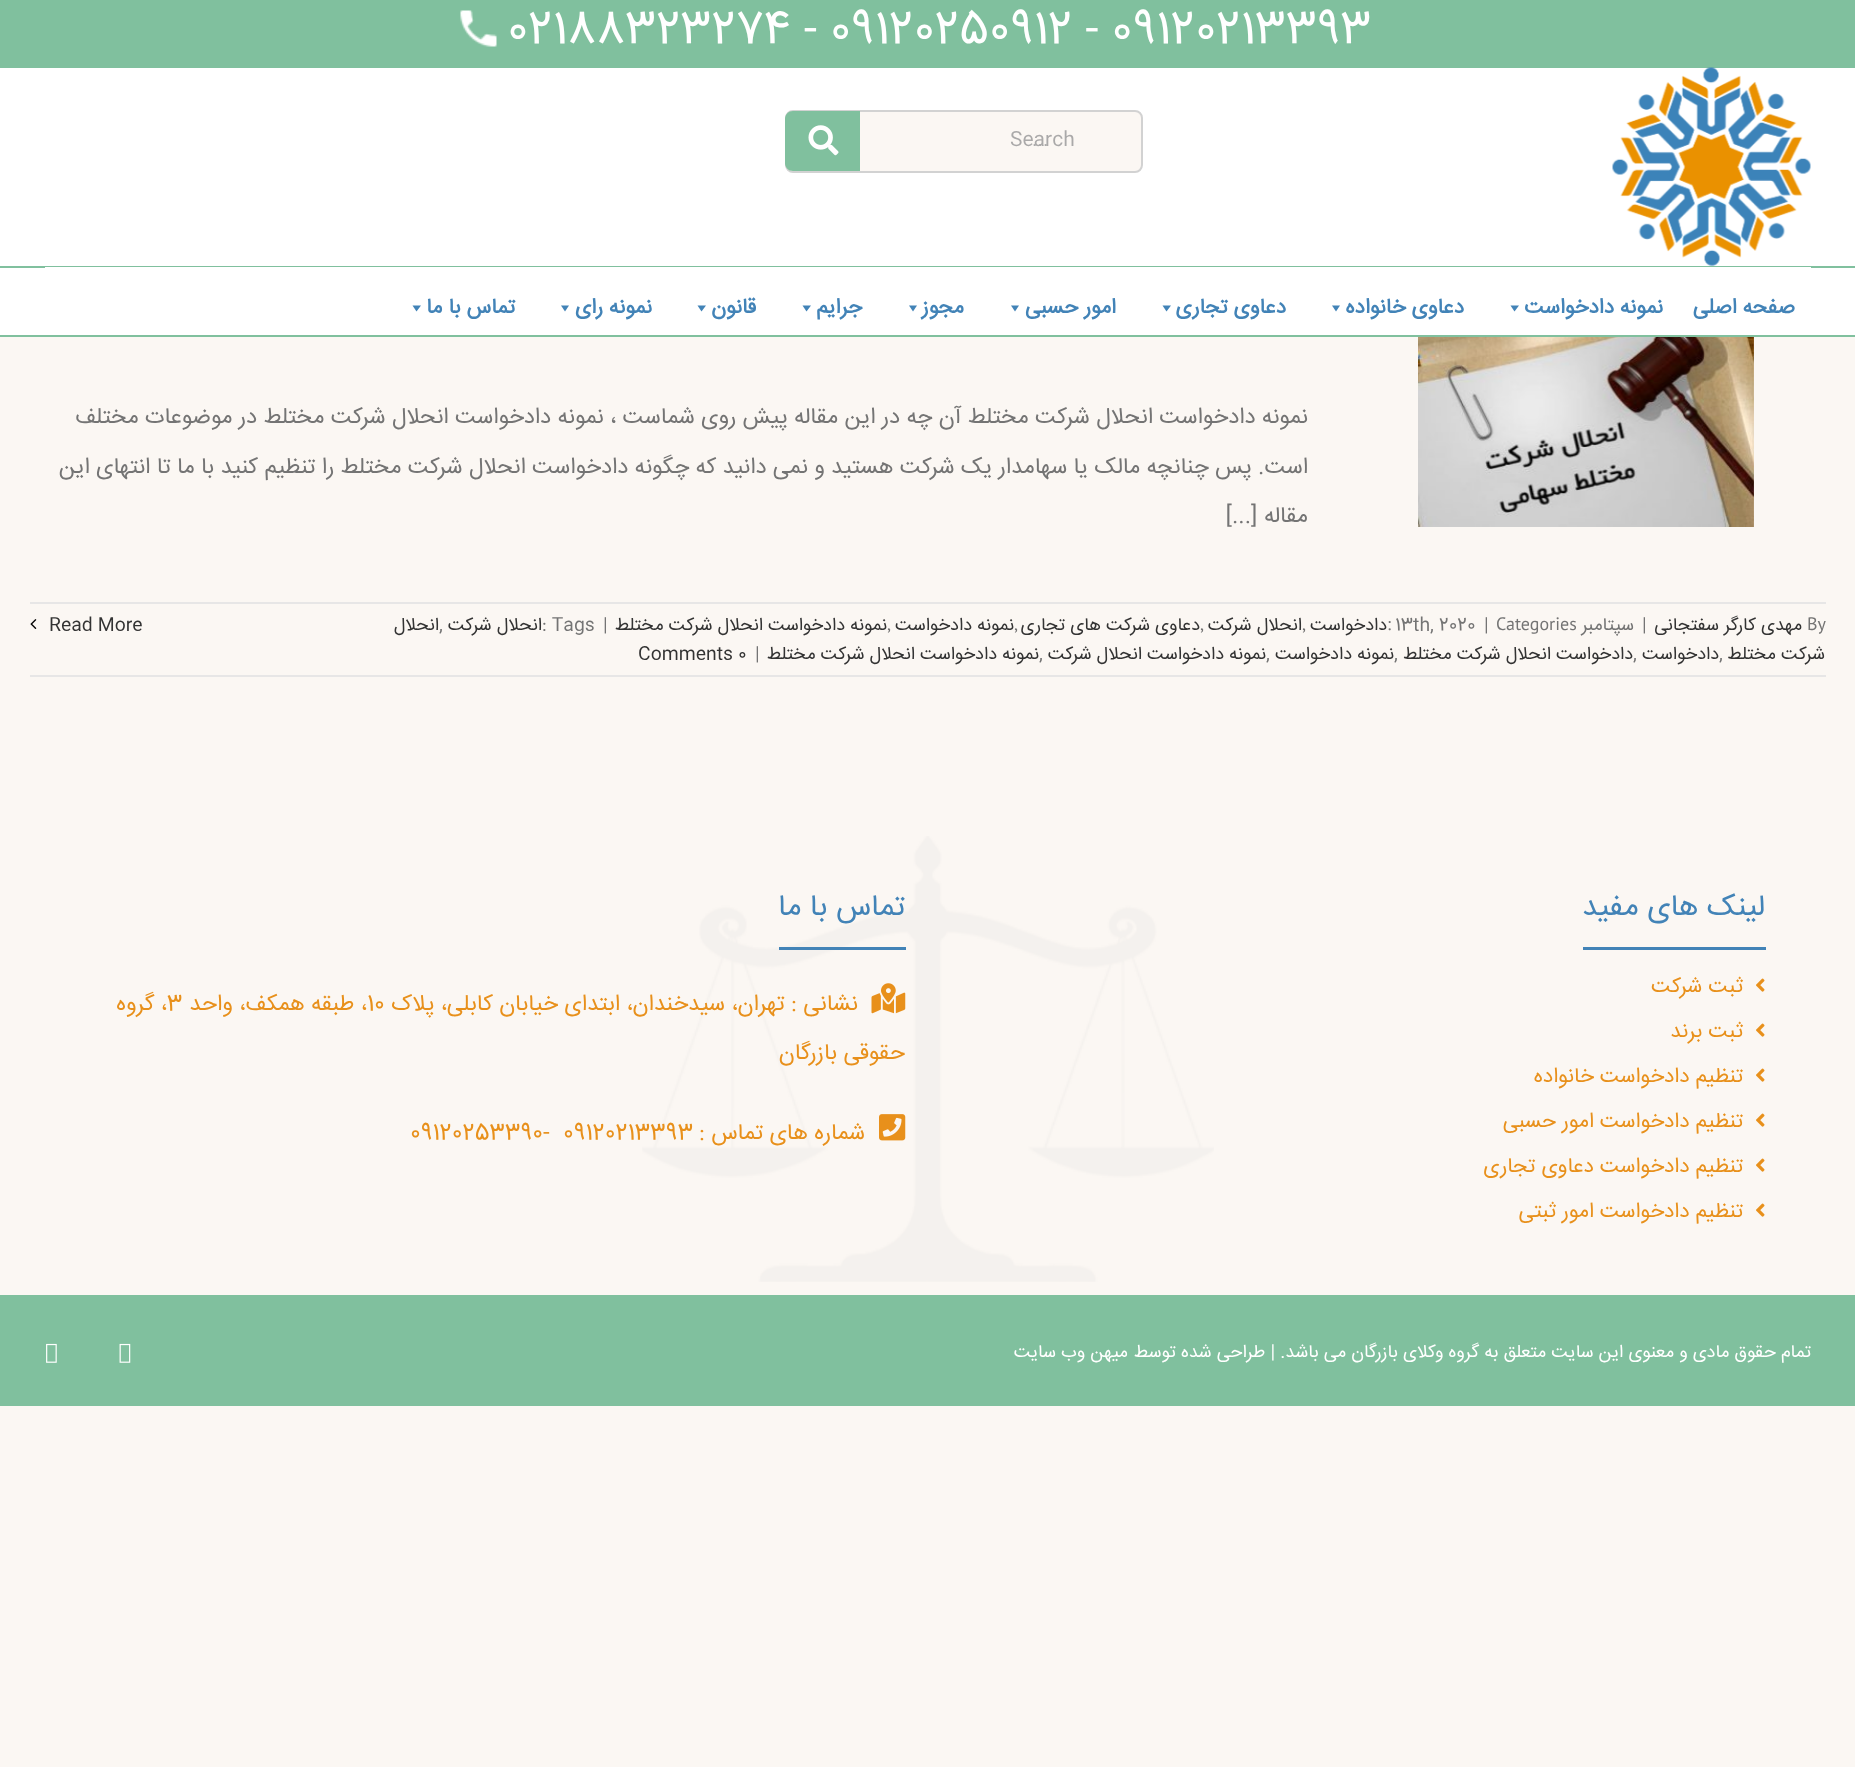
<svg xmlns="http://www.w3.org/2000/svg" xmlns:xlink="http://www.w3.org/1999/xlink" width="1855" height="1767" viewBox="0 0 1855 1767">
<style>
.cls-1{font:45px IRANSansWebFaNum;fill:#ffffff}
.cls-2{font:19.5px IRANSansWebFaNum;fill:#aaa9a9}
.cls-3{font:bold 21px IRANSansWebFaNum;direction:rtl;fill:#4283b7}
.cls-4{font:22.5px IRANSansWebFaNum;direction:rtl;fill:#747474}
.cls-5{font:18px PT Sans;fill:#747474}
.cls-6{font:18px IRANSansWebFaNum;direction:rtl;fill:#333333}
.cls-7{font:18px IRANSansWebFaNum;fill:#747474}
.cls-8{font:18px IRANSansWebFaNum;direction:rtl;fill:#747474}
.cls-9{font:18px IRANSansWebFaNum;fill:#333333}
.cls-10{font:30px IRANSansWebFaNum;direction:rtl;fill:#4283b7}
.cls-11{font:21px IRANSansWebFaNum;direction:rtl;fill:#e8901b}
.cls-12{font:22.5px IRANSansWebFaNum;direction:rtl;fill:#e8901b}
.cls-13{font:22.5px IRANSansWebFaNum;fill:#e8901b}
.cls-14{font:18px IRANSansWebFaNum;direction:rtl;fill:#ffffff}
</style>
<rect width="100%" height="100%" fill="#fbf7f3"/>
<rect fill="#80c09e" x="0" y="0" width="1855" height="68"/>
<image xlink:href="image0.png" x="460" y="10" width="37" height="37"/>
<rect fill="#ffffff" x="0" y="68" width="1855" height="198"/>
<rect fill="#80c09e" x="0" y="266" width="1855" height="2"/>
<image xlink:href="image1.png" x="1612" y="67" width="199" height="199"/>
<rect fill="#fbf7f3" stroke="#d2d2d2" stroke-width="2" x="786" y="111" width="356" height="61" rx="7"/>
<path fill="#80c09e" d="M793 111H860V171H793C788.5 171 785 167.5 785 163V119C785 114.5 788.5 111 793 111Z"/>
<image xlink:href="image2.png" x="808" y="125" width="31" height="31"/>
<rect fill="#ffffff" x="0" y="268" width="1855" height="67"/>
<rect fill="#80c09e" x="0" y="335" width="1855" height="2"/>
<rect fill="#ffffff" x="45" y="267" width="1766" height="1"/>
<path fill="#4283b7" d="M1519 305.5L1514.5 311.5L1510.5 305.5Z"/>
<path fill="#4283b7" d="M1340 305.5L1336 311.5L1332 305.5Z"/>
<path fill="#4283b7" d="M1171 305.5L1166.5 311.5L1162.5 305.5Z"/>
<path fill="#4283b7" d="M1019 305.5L1015 311.5L1011 305.5Z"/>
<path fill="#4283b7" d="M917 305.5L913 311.5L909 305.5Z"/>
<path fill="#4283b7" d="M811 305.5L806.5 311.5L802.5 305.5Z"/>
<path fill="#4283b7" d="M706 305.5L701.5 311.5L697.5 305.5Z"/>
<path fill="#4283b7" d="M569 305.5L565 311.5L561 305.5Z"/>
<path fill="#4283b7" d="M421 305.5L416.5 311.5L412.5 305.5Z"/>
<image xlink:href="image3.png" x="1418" y="337" width="336" height="190"/>
<rect fill="#e7e6e6" x="30" y="602" width="1796" height="2"/>
<rect fill="#e7e6e6" x="30" y="675" width="1796" height="2"/>
<image xlink:href="image4.png" x="30" y="619" width="7" height="10"/>
<image xlink:href="image5.png" x="642" y="836" width="572" height="446"/>
<rect fill="#4283b7" x="1583" y="947" width="183" height="3"/>
<image xlink:href="image6.png" x="1756" y="978" width="9" height="14"/>
<image xlink:href="image6.png" x="1756" y="1023" width="9" height="14"/>
<image xlink:href="image6.png" x="1756" y="1068" width="9" height="14"/>
<image xlink:href="image6.png" x="1756" y="1113" width="9" height="14"/>
<image xlink:href="image6.png" x="1756" y="1158" width="9" height="14"/>
<image xlink:href="image6.png" x="1756" y="1203" width="9" height="14"/>
<rect fill="#4283b7" x="779" y="947" width="127" height="3"/>
<image xlink:href="image7.png" x="871" y="983" width="35" height="31"/>
<image xlink:href="image8.png" x="879" y="1114" width="27" height="27"/>
<rect fill="#80c09e" x="0" y="1295" width="1855" height="111"/>
<image xlink:href="image9.png" x="119" y="1343" width="12" height="20"/>
<image xlink:href="image10.png" x="46" y="1343" width="11" height="20"/>
<text class="cls-1" x="507" y="42">02188323274 - 09120250912 - 09120213393</text>
<text class="cls-2" x="1010" y="145">Search</text>
<text class="cls-2" x="1032" y="145">...</text>
<text class="cls-3" x="1795" y="313">صفحه اصلی</text>
<text class="cls-3" x="1663" y="313">نمونه دادخواست</text>
<text class="cls-3" x="1464" y="313">دعاوی خانواده</text>
<text class="cls-3" x="1286" y="313">دعاوی تجاری</text>
<text class="cls-3" x="1116" y="313">امور حسبی</text>
<text class="cls-3" x="964" y="313">مجوز</text>
<text class="cls-3" x="862" y="313">جرایم</text>
<text class="cls-3" x="756" y="313">قانون</text>
<text class="cls-3" x="652" y="313">نمونه رای</text>
<text class="cls-3" x="515" y="313">تماس با ما</text>
<text class="cls-4" x="1308" y="423">نمونه دادخواست انحلال شرکت مختلط آن چه در این مقاله پیش روی شماست ، نمونه دادخواست انحلال شرکت مختلط در موضوعات مختلف</text>
<text class="cls-4" x="1308" y="473">است. پس چنانچه مالک یا سهامدار یک شرکت هستید و نمی دانید که چگونه دادخواست انحلال شرکت مختلط را تنظیم کنید با ما تا انتهای این</text>
<text class="cls-4" x="1308" y="522">مقاله [...]</text>
<text class="cls-5" x="1807" y="630">By</text>
<text class="cls-6" x="1802" y="630">مهدی کارگر سفتجانی</text>
<text class="cls-7" x="1642" y="630">|</text>
<text class="cls-8" x="1634" y="630">سپتامبر</text>
<text class="cls-5" x="1496" y="630">Categories</text>
<text class="cls-7" x="1484" y="630">|</text>
<text class="cls-7" x="1395" y="630">13th, 2020</text>
<text class="cls-5" x="1387" y="630">:</text>
<text class="cls-6" x="1387" y="630">دادخواست</text>
<text class="cls-5" x="1302" y="630">,</text>
<text class="cls-6" x="1302" y="630">انحلال شرکت</text>
<text class="cls-5" x="1200" y="630">,</text>
<text class="cls-6" x="1200" y="630">دعاوی شرکت های تجاری</text>
<text class="cls-5" x="1014" y="630">,</text>
<text class="cls-6" x="1014" y="630">نمونه دادخواست</text>
<text class="cls-5" x="887" y="630">,</text>
<text class="cls-6" x="887" y="630">نمونه دادخواست انحلال شرکت مختلط</text>
<text class="cls-7" x="603" y="630">|</text>
<text class="cls-7" x="542" y="630">: Tags</text>
<text class="cls-6" x="542" y="630">انحلال شرکت</text>
<text class="cls-7" x="439" y="630">,</text>
<text class="cls-6" x="439" y="630">انحلال</text>
<text class="cls-6" x="1825" y="659">شرکت مختلط</text>
<text class="cls-7" x="1719" y="659">,</text>
<text class="cls-6" x="1719" y="659">دادخواست</text>
<text class="cls-7" x="1633" y="659">,</text>
<text class="cls-6" x="1633" y="659">دادخواست انحلال شرکت مختلط</text>
<text class="cls-7" x="1394" y="659">,</text>
<text class="cls-6" x="1394" y="659">نمونه دادخواست</text>
<text class="cls-7" x="1266" y="659">,</text>
<text class="cls-6" x="1266" y="659">نمونه دادخواست انحلال شرکت</text>
<text class="cls-7" x="1039" y="659">,</text>
<text class="cls-6" x="1039" y="659">نمونه دادخواست انحلال شرکت مختلط</text>
<text class="cls-7" x="755" y="659">|</text>
<text class="cls-9" x="638" y="659">Comments 0</text>
<text class="cls-9" x="49" y="630">Read More</text>
<text class="cls-10" x="1765" y="915">لینک های مفید</text>
<text class="cls-11" x="1743" y="992">ثبت شرکت</text>
<text class="cls-11" x="1743" y="1037">ثبت برند</text>
<text class="cls-11" x="1743" y="1082">تنظیم دادخواست خانواده</text>
<text class="cls-11" x="1743" y="1127">تنظیم دادخواست امور حسبی</text>
<text class="cls-11" x="1743" y="1172">تنظیم دادخواست دعاوی تجاری</text>
<text class="cls-11" x="1743" y="1217">تنظیم دادخواست امور ثبتی</text>
<text class="cls-10" x="905" y="915">تماس با ما</text>
<text class="cls-12" x="858" y="1010">نشانی : تهران، سیدخندان، ابتدای خیابان کابلی، پلاک</text>
<text class="cls-13" x="367" y="1010">10</text>
<text class="cls-12" x="367" y="1010">، طبقه همکف، واحد</text>
<text class="cls-13" x="167" y="1010">3</text>
<text class="cls-12" x="167" y="1010">، گروه</text>
<text class="cls-12" x="905" y="1059">حقوقی بازرگان</text>
<text class="cls-12" x="865" y="1139">شماره های تماس :</text>
<text class="cls-13" x="563" y="1139">09120213393</text>
<text class="cls-13" x="543" y="1139">-</text>
<text class="cls-13" x="410" y="1139">09120253390</text>
<text class="cls-14" x="1811" y="1357">تمام حقوق مادی و معنوی این سایت متعلق به گروه وکلای بازرگان می باشد. | طراحی شده توسط</text>
<text class="cls-14" x="1128" y="1357">میهن وب سایت</text>
</svg>
